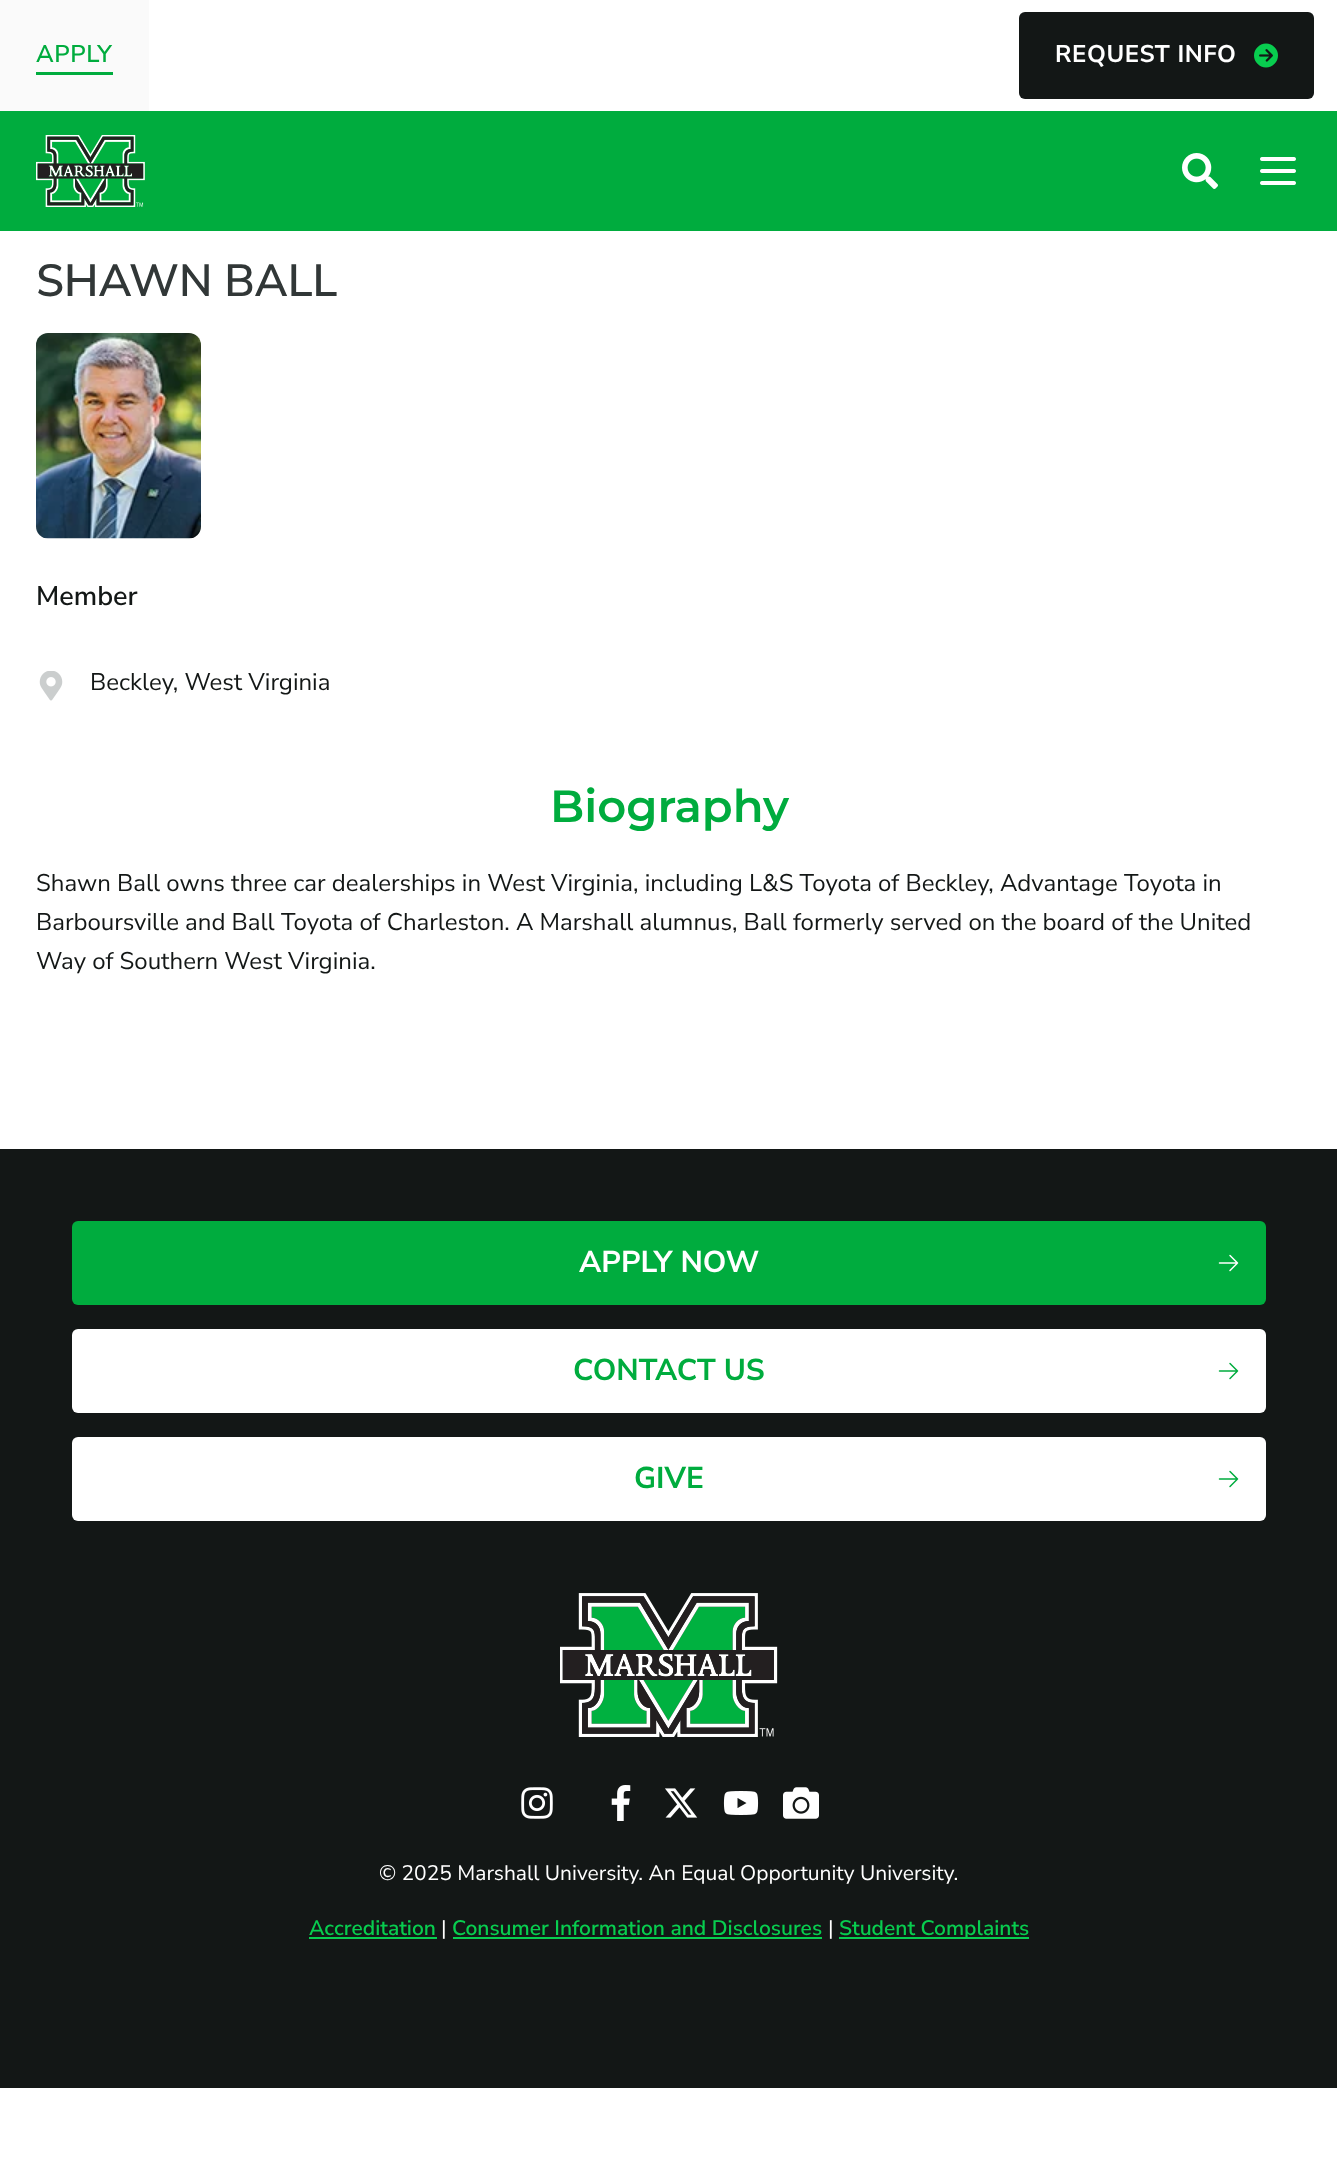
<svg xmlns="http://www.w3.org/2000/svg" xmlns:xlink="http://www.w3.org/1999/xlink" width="1337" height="2167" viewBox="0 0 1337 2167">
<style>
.cls-1{font:600 24px Nunito Sans;letter-spacing:0.6px;fill:#00ac3e}
.cls-2{font:bold 24px Nunito Sans;letter-spacing:0.6px;fill:#ffffff}
.cls-3{font:600 45px Nunito Sans;fill:#313737}
.cls-4{font:600 27px Nunito Sans;fill:#131716}
.cls-5{font:24px Nunito Sans;fill:#131716}
.cls-6{font:600 45px Montserrat;fill:#00ac3e}
.cls-7{font:bold 30px Nunito Sans;fill:#ffffff}
.cls-8{font:bold 30px Nunito Sans;fill:#00ac3e}
.cls-9{font:21px Nunito Sans;fill:#ffffff}
.cls-10{font:600 21px Nunito Sans;fill:#08cd4f}
</style>
<rect width="100%" height="100%" fill="#ffffff"/>
<rect fill="#fafafa" x="0" y="0" width="149" height="111"/>
<rect fill="#00ac3e" x="36" y="72" width="77" height="3"/>
<rect fill="#131716" x="1019" y="12" width="295" height="87" rx="6"/>
<image xlink:href="image0.png" x="1254" y="43" width="24" height="25"/>
<rect fill="#00ac3e" x="0" y="111" width="1337" height="120"/>
<image xlink:href="image1.png" x="36" y="135" width="109" height="72"/>
<image xlink:href="image2.png" x="1182" y="153" width="36" height="36"/>
<image xlink:href="image3.png" x="1260" y="157" width="36" height="28"/>
<image xlink:href="image4.png" x="36" y="333" width="165" height="206"/>
<image xlink:href="image5.png" x="39" y="671" width="24" height="30"/>
<rect fill="#131716" x="0" y="1149" width="1337" height="939"/>
<rect fill="#00ac3e" x="72" y="1221" width="1194" height="84" rx="6"/>
<path fill="none" stroke="#ffffff" stroke-width="1.5" stroke-linecap="round" stroke-linejoin="round" d="M1230 1255.5L1237.5 1263M1237.5 1263L1230 1270.5M1237.5 1263H1219.5"/>
<rect fill="#ffffff" x="72" y="1329" width="1194" height="84" rx="6"/>
<path fill="none" stroke="#00ac3e" stroke-width="1.5" stroke-linecap="round" stroke-linejoin="round" d="M1230 1363.5L1237.5 1371M1237.5 1371L1230 1378.5M1237.5 1371H1219.5"/>
<rect fill="#ffffff" x="72" y="1437" width="1194" height="84" rx="6"/>
<path fill="none" stroke="#00ac3e" stroke-width="1.5" stroke-linecap="round" stroke-linejoin="round" d="M1230 1471.5L1237.5 1479M1237.5 1479L1230 1486.5M1237.5 1479H1219.5"/>
<image xlink:href="image6.png" x="560" y="1593" width="218" height="144"/>
<image xlink:href="image7.png" x="521" y="1787" width="32" height="32"/>
<image xlink:href="image8.png" x="611" y="1785" width="20" height="36"/>
<image xlink:href="image9.png" x="665" y="1788" width="33" height="30"/>
<image xlink:href="image10.png" x="723" y="1791" width="36" height="24"/>
<image xlink:href="image11.png" x="783" y="1787" width="36" height="32"/>
<rect fill="#08cd4f" x="309" y="1937" width="128" height="2"/>
<rect fill="#08cd4f" x="453" y="1937" width="369" height="2"/>
<rect fill="#08cd4f" x="839" y="1937" width="190" height="2"/>
<text class="cls-1" x="36" y="62">APPLY</text>
<text class="cls-2" x="1055" y="62">REQUEST INFO</text>
<text class="cls-3" x="36" y="296">SHAWN BALL</text>
<text class="cls-4" x="36" y="605">Member</text>
<text class="cls-5" x="90" y="690">Beckley, West Virginia</text>
<text class="cls-6" x="550" y="822">Biography</text>
<text class="cls-5"><tspan x="36" y="891">Shawn Ball owns three car dealerships in West Virginia, including L&amp;S Toyota of Beckley, Advantage Toyota in</tspan><tspan x="36" y="930">Barboursville and Ball Toyota of Charleston. A Marshall alumnus, Ball formerly served on the board of the United</tspan><tspan x="36" y="969">Way of Southern West Virginia.</tspan></text>
<text class="cls-7" x="579" y="1272">APPLY NOW</text>
<text class="cls-8" x="573" y="1380">CONTACT US</text>
<text class="cls-8" x="634" y="1488">GIVE</text>
<text class="cls-9" x="379" y="1880">© 2025 Marshall University. An Equal Opportunity University.</text>
<text class="cls-10" x="309" y="1935">Accreditation</text>
<text class="cls-9" x="441" y="1935">|</text>
<text class="cls-10" x="452" y="1935">Consumer Information and Disclosures</text>
<text class="cls-9" x="828" y="1935">|</text>
<text class="cls-10" x="839" y="1935">Student Complaints</text>
</svg>
